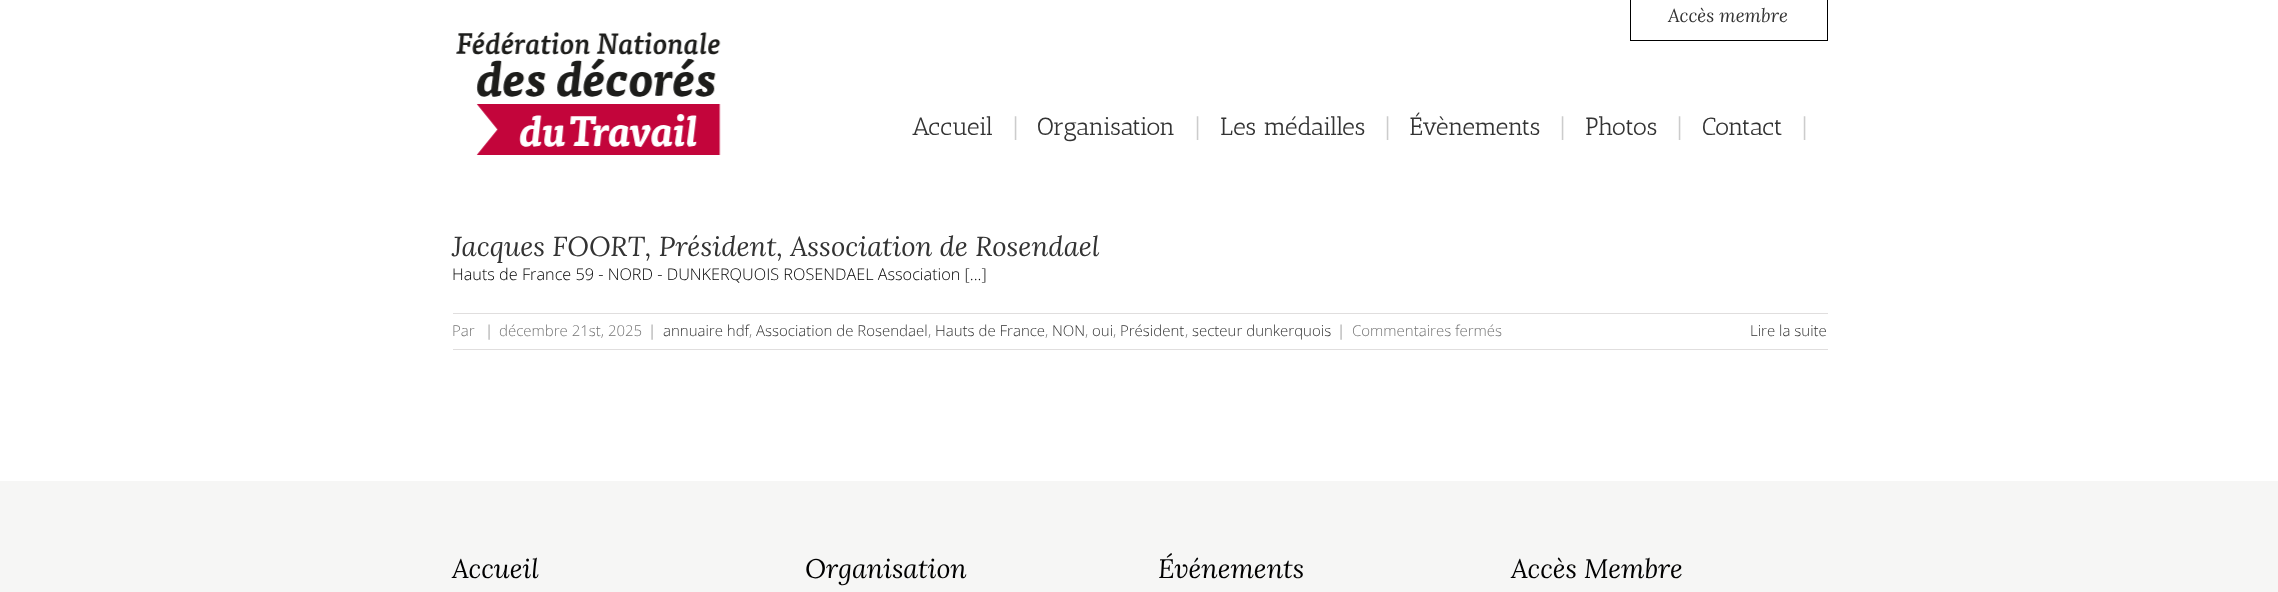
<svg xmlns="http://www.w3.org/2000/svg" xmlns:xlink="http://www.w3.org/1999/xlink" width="2278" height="592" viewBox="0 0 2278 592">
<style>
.cls-1{font:italic 18.75px Lora;fill:#333333}
.cls-2{font:25px Antic Slab;fill:#333333}
.cls-3{font:25px Antic Slab;fill:#cccccc}
.cls-4{font:italic 27.5px Lora;fill:#333333}
.cls-5{font:300 16.25px Open Sans;fill:#000000}
.cls-6{font:300 15px Open Sans;fill:#747474}
.cls-7{font:300 15px Open Sans;fill:#333333}
.cls-8{font:italic 26.75px Lora;fill:#000000}
</style>
<rect width="100%" height="100%" fill="#ffffff"/>
<rect fill="none" stroke="#000000" x="1630.5" y="-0.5" width="197" height="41"/>
<image xlink:href="image0.png" x="456" y="32" width="265" height="123"/>
<rect fill="#e0dede" x="453" y="313" width="1375" height="1"/>
<rect fill="#e0dede" x="453" y="349" width="1375" height="1"/>
<rect fill="#f6f6f5" x="0" y="481" width="2278" height="111"/>
<text class="cls-1" x="1668" y="22">Accès membre</text>
<text class="cls-2" x="912" y="135">Accueil</text>
<text class="cls-3" x="1012" y="135">|</text>
<text class="cls-2" x="1037" y="135">Organisation</text>
<text class="cls-3" x="1194" y="135">|</text>
<text class="cls-2" x="1220" y="135">Les médailles</text>
<text class="cls-3" x="1384" y="135">|</text>
<text class="cls-2" x="1410" y="135">Évènements</text>
<text class="cls-3" x="1559" y="135">|</text>
<text class="cls-2" x="1585" y="135">Photos</text>
<text class="cls-3" x="1676" y="135">|</text>
<text class="cls-2" x="1702" y="135">Contact</text>
<text class="cls-3" x="1801" y="135">|</text>
<text class="cls-4" x="452" y="256">Jacques FOORT, Président, Association de Rosendael</text>
<text class="cls-5" x="452" y="280">Hauts de France 59 - NORD - DUNKERQUOIS ROSENDAEL Association [...]</text>
<text class="cls-6" x="452" y="336">Par</text>
<text class="cls-6" x="485" y="336">|</text>
<text class="cls-6" x="499" y="336">décembre 21st, 2025</text>
<text class="cls-6" x="648" y="336">|</text>
<text class="cls-7" x="663" y="336">annuaire hdf</text>
<text class="cls-6" x="749" y="336">,</text>
<text class="cls-7" x="756" y="336">Association de Rosendael</text>
<text class="cls-6" x="928" y="336">,</text>
<text class="cls-7" x="935" y="336">Hauts de France</text>
<text class="cls-6" x="1045" y="336">,</text>
<text class="cls-7" x="1052" y="336">NON</text>
<text class="cls-6" x="1085" y="336">,</text>
<text class="cls-7" x="1092" y="336">oui</text>
<text class="cls-6" x="1113" y="336">,</text>
<text class="cls-7" x="1120" y="336">Président</text>
<text class="cls-6" x="1185" y="336">,</text>
<text class="cls-7" x="1192" y="336">secteur dunkerquois</text>
<text class="cls-6" x="1337" y="336">|</text>
<text class="cls-6" x="1352" y="336">Commentaires fermés</text>
<text class="cls-7" x="1750" y="336">Lire la suite</text>
<text class="cls-8" x="452" y="578">Accueil</text>
<text class="cls-8" x="805" y="578">Organisation</text>
<text class="cls-8" x="1158" y="578">Événements</text>
<text class="cls-8" x="1511" y="578">Accès Membre</text>
</svg>
